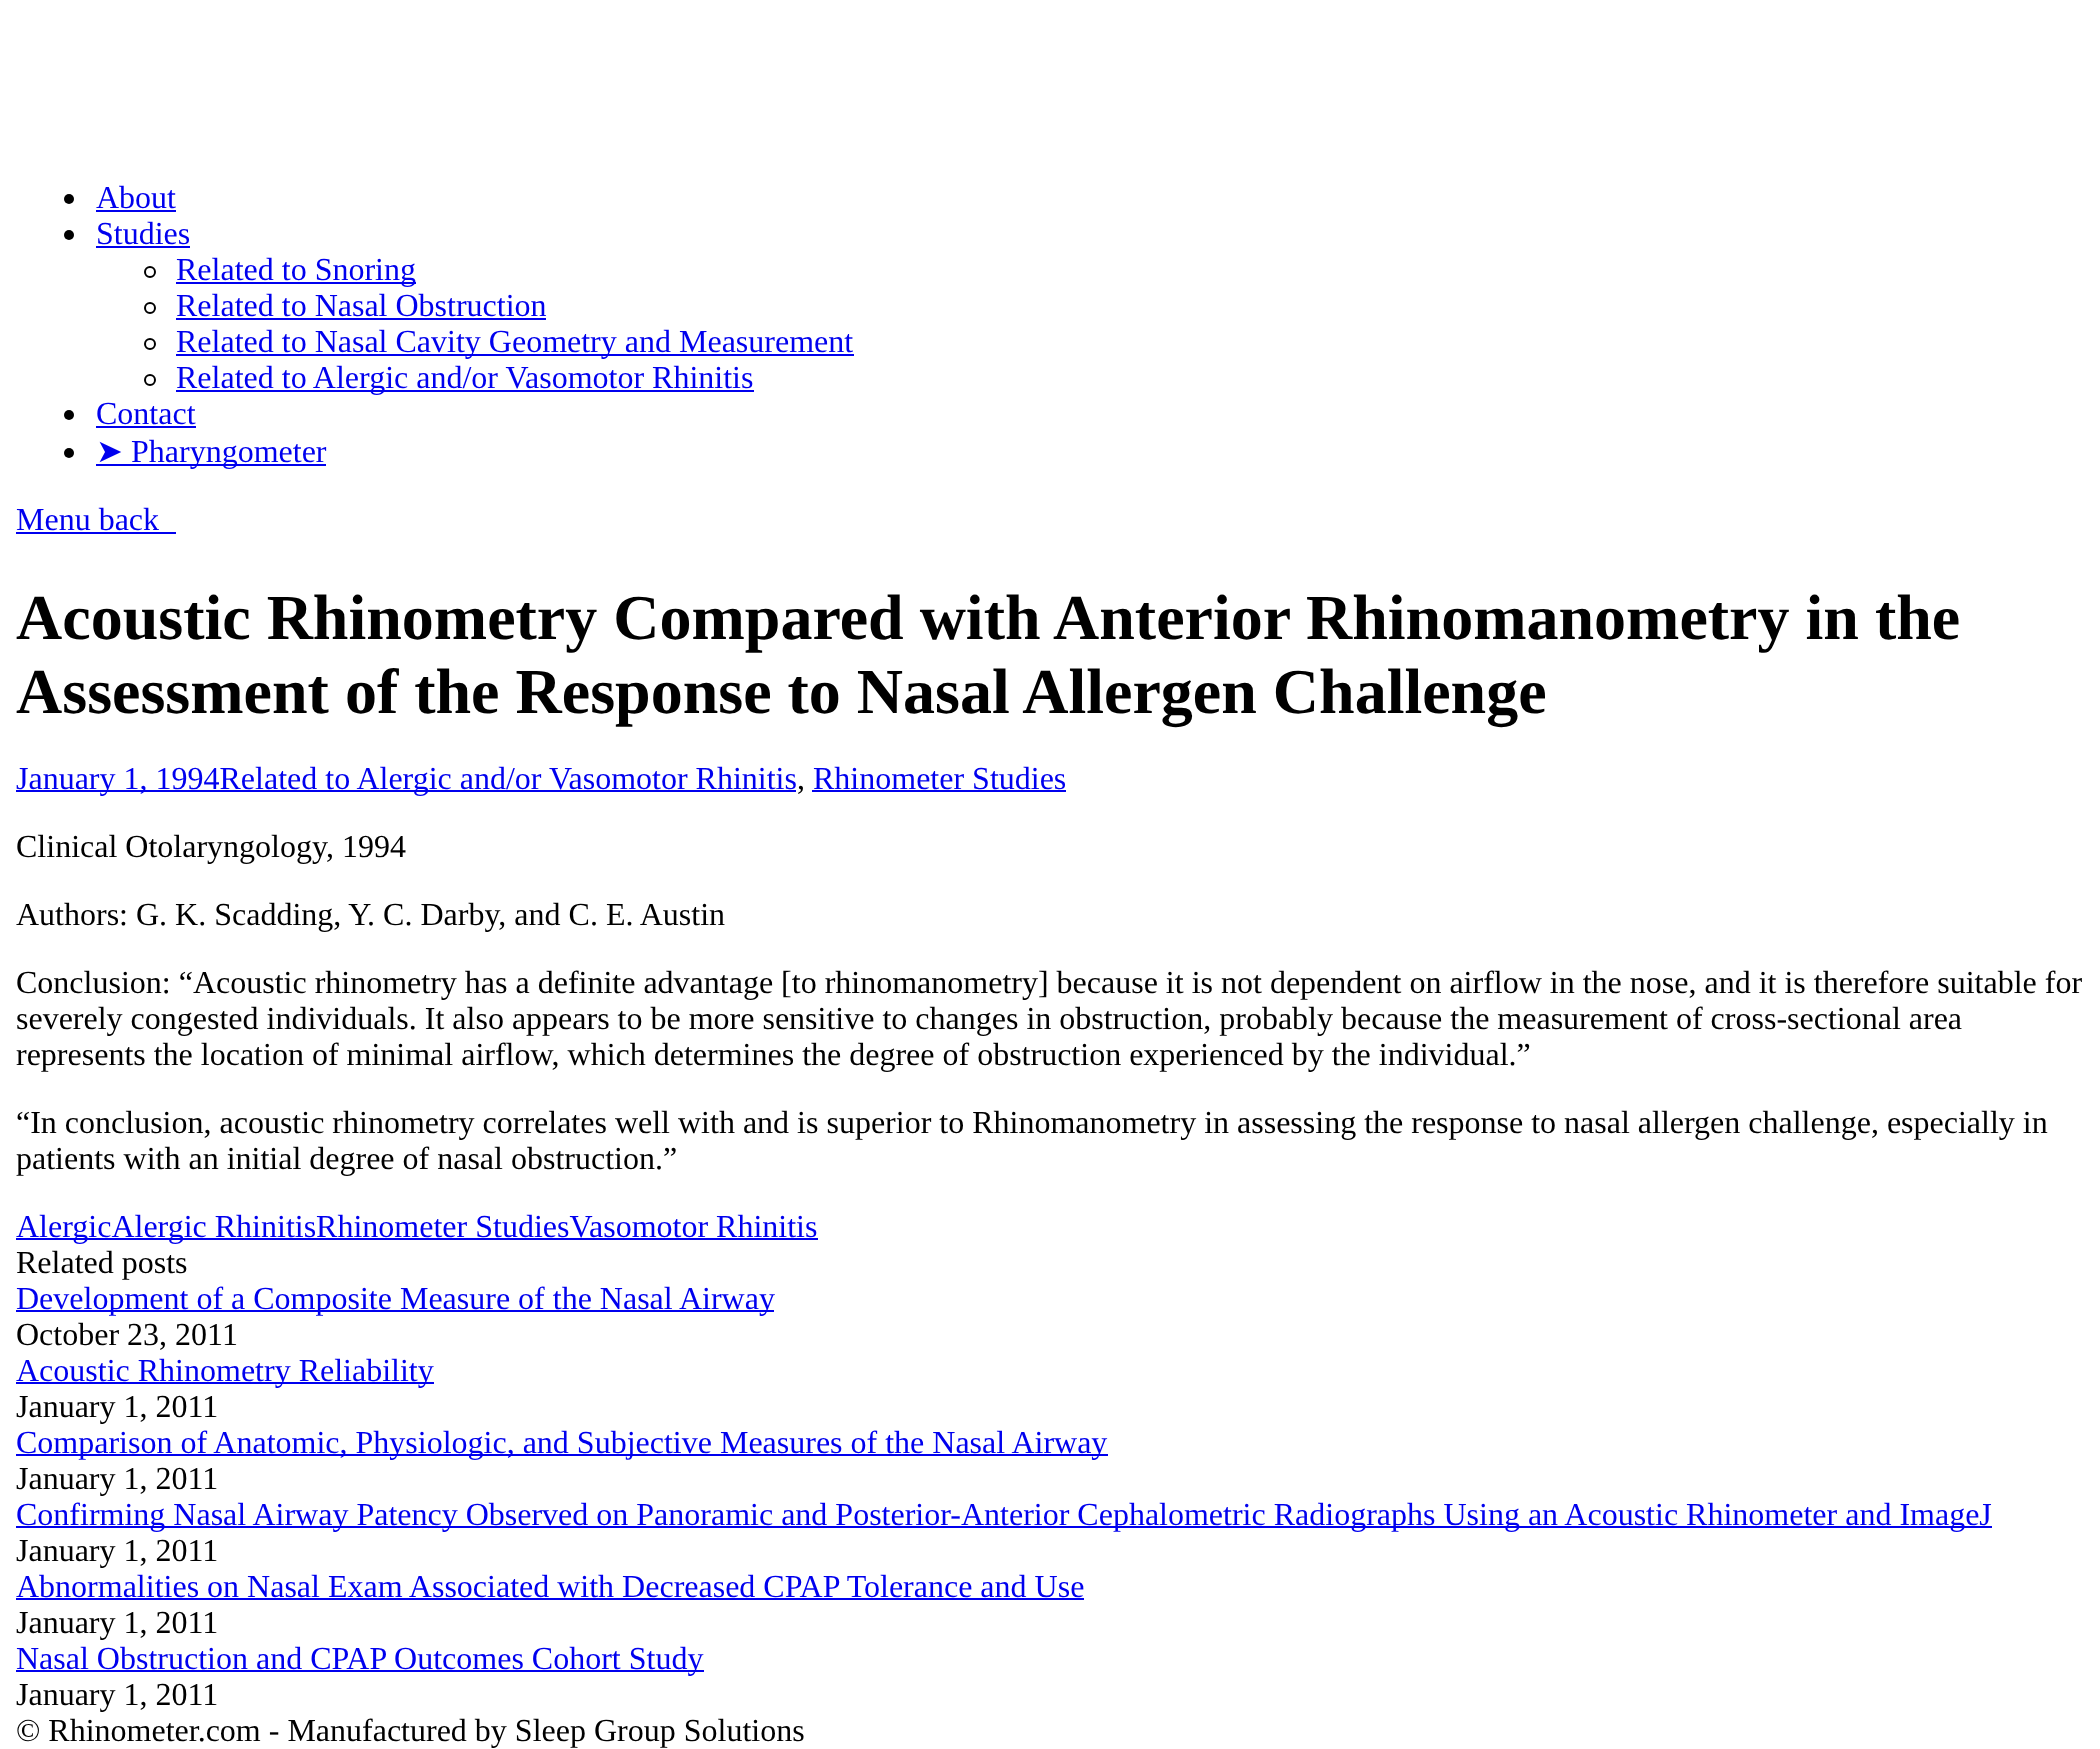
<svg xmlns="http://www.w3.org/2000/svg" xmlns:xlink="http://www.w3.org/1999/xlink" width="2100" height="1749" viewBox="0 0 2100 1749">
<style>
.cls-1{font:32px Liberation Serif;fill:#0000ee}
.cls-2{font:32px DejaVu Sans;fill:#0000ee}
.cls-3{font:bold 64px Liberation Serif;fill:#000000}
.cls-4{font:32px Liberation Serif;fill:#000000}
</style>
<rect width="100%" height="100%" fill="#ffffff"/>
<circle fill="#000000" cx="69" cy="199" r="5"/>
<rect fill="#0000ee" x="96" y="210" width="80" height="2"/>
<circle fill="#000000" cx="69" cy="235" r="5"/>
<rect fill="#0000ee" x="96" y="246" width="94" height="2"/>
<circle fill="none" stroke="#000000" stroke-width="2" cx="150" cy="272" r="5"/>
<rect fill="#0000ee" x="176" y="282" width="240" height="2"/>
<circle fill="none" stroke="#000000" stroke-width="2" cx="150" cy="308" r="5"/>
<rect fill="#0000ee" x="176" y="318" width="370" height="2"/>
<circle fill="none" stroke="#000000" stroke-width="2" cx="150" cy="344" r="5"/>
<rect fill="#0000ee" x="176" y="354" width="678" height="2"/>
<circle fill="none" stroke="#000000" stroke-width="2" cx="150" cy="380" r="5"/>
<rect fill="#0000ee" x="176" y="390" width="578" height="2"/>
<circle fill="#000000" cx="69" cy="415" r="5"/>
<rect fill="#0000ee" x="96" y="426" width="100" height="2"/>
<circle fill="#000000" cx="69" cy="453" r="5"/>
<rect fill="#0000ee" x="96" y="464" width="230" height="2"/>
<rect fill="#0000ee" x="16" y="532" width="160" height="2"/>
<rect fill="#0000ee" x="16" y="790" width="780" height="2"/>
<rect fill="#0000ee" x="812" y="790" width="254" height="2"/>
<rect fill="#0000ee" x="16" y="1238" width="802" height="2"/>
<rect fill="#0000ee" x="16" y="1310" width="758" height="2"/>
<rect fill="#0000ee" x="16" y="1382" width="418" height="2"/>
<rect fill="#0000ee" x="16" y="1454" width="1092" height="2"/>
<rect fill="#0000ee" x="16" y="1526" width="1976" height="2"/>
<rect fill="#0000ee" x="16" y="1598" width="1068" height="2"/>
<rect fill="#0000ee" x="16" y="1670" width="688" height="2"/>
<text class="cls-1"><tspan x="96" y="208">About</tspan><tspan x="96" y="244">Studies</tspan></text>
<text class="cls-1"><tspan x="176" y="280">Related to Snoring</tspan><tspan x="176" y="316">Related to Nasal Obstruction</tspan><tspan x="176" y="352">Related to Nasal Cavity Geometry and Measurement</tspan><tspan x="176" y="388">Related to Alergic and/or Vasomotor Rhinitis</tspan></text>
<text class="cls-1" x="96" y="424">Contact</text>
<text class="cls-2" x="96" y="462">➤</text>
<text class="cls-1" x="131" y="462">Pharyngometer</text>
<text class="cls-1" x="16" y="530">Menu back</text>
<text class="cls-3"><tspan x="16" y="639">Acoustic Rhinometry Compared with Anterior Rhinomanometry in the</tspan><tspan x="16" y="713">Assessment of the Response to Nasal Allergen Challenge</tspan></text>
<text class="cls-1" x="16" y="789">January 1, 1994Related to Alergic and/or Vasomotor Rhinitis</text>
<text class="cls-4" x="797" y="789">,</text>
<text class="cls-1" x="813" y="789">Rhinometer Studies</text>
<text class="cls-4" x="16" y="857">Clinical Otolaryngology, 1994</text>
<text class="cls-4" x="16" y="925">Authors: G. K. Scadding, Y. C. Darby, and C. E. Austin</text>
<text class="cls-4"><tspan x="16" y="993">Conclusion: “Acoustic rhinometry has a definite advantage [to rhinomanometry] because it is not dependent on airflow in the nose, and it is therefore suitable for</tspan><tspan x="16" y="1029">severely congested individuals. It also appears to be more sensitive to changes in obstruction, probably because the measurement of cross-sectional area</tspan><tspan x="16" y="1065">represents the location of minimal airflow, which determines the degree of obstruction experienced by the individual.”</tspan></text>
<text class="cls-4"><tspan x="16" y="1133">“In conclusion, acoustic rhinometry correlates well with and is superior to Rhinomanometry in assessing the response to nasal allergen challenge, especially in</tspan><tspan x="16" y="1169">patients with an initial degree of nasal obstruction.”</tspan></text>
<text class="cls-1" x="16" y="1237">AlergicAlergic RhinitisRhinometer StudiesVasomotor Rhinitis</text>
<text class="cls-4" x="16" y="1273">Related posts</text>
<text class="cls-1" x="16" y="1309">Development of a Composite Measure of the Nasal Airway</text>
<text class="cls-4" x="16" y="1345">October 23, 2011</text>
<text class="cls-1" x="16" y="1381">Acoustic Rhinometry Reliability</text>
<text class="cls-4" x="16" y="1417">January 1, 2011</text>
<text class="cls-1" x="16" y="1453">Comparison of Anatomic, Physiologic, and Subjective Measures of the Nasal Airway</text>
<text class="cls-4" x="16" y="1489">January 1, 2011</text>
<text class="cls-1" x="16" y="1525">Confirming Nasal Airway Patency Observed on Panoramic and Posterior-Anterior Cephalometric Radiographs Using an Acoustic Rhinometer and ImageJ</text>
<text class="cls-4" x="16" y="1561">January 1, 2011</text>
<text class="cls-1" x="16" y="1597">Abnormalities on Nasal Exam Associated with Decreased CPAP Tolerance and Use</text>
<text class="cls-4" x="16" y="1633">January 1, 2011</text>
<text class="cls-1" x="16" y="1669">Nasal Obstruction and CPAP Outcomes Cohort Study</text>
<text class="cls-4"><tspan x="16" y="1705">January 1, 2011</tspan><tspan x="16" y="1741">© Rhinometer.com - Manufactured by Sleep Group Solutions</tspan></text>
</svg>
